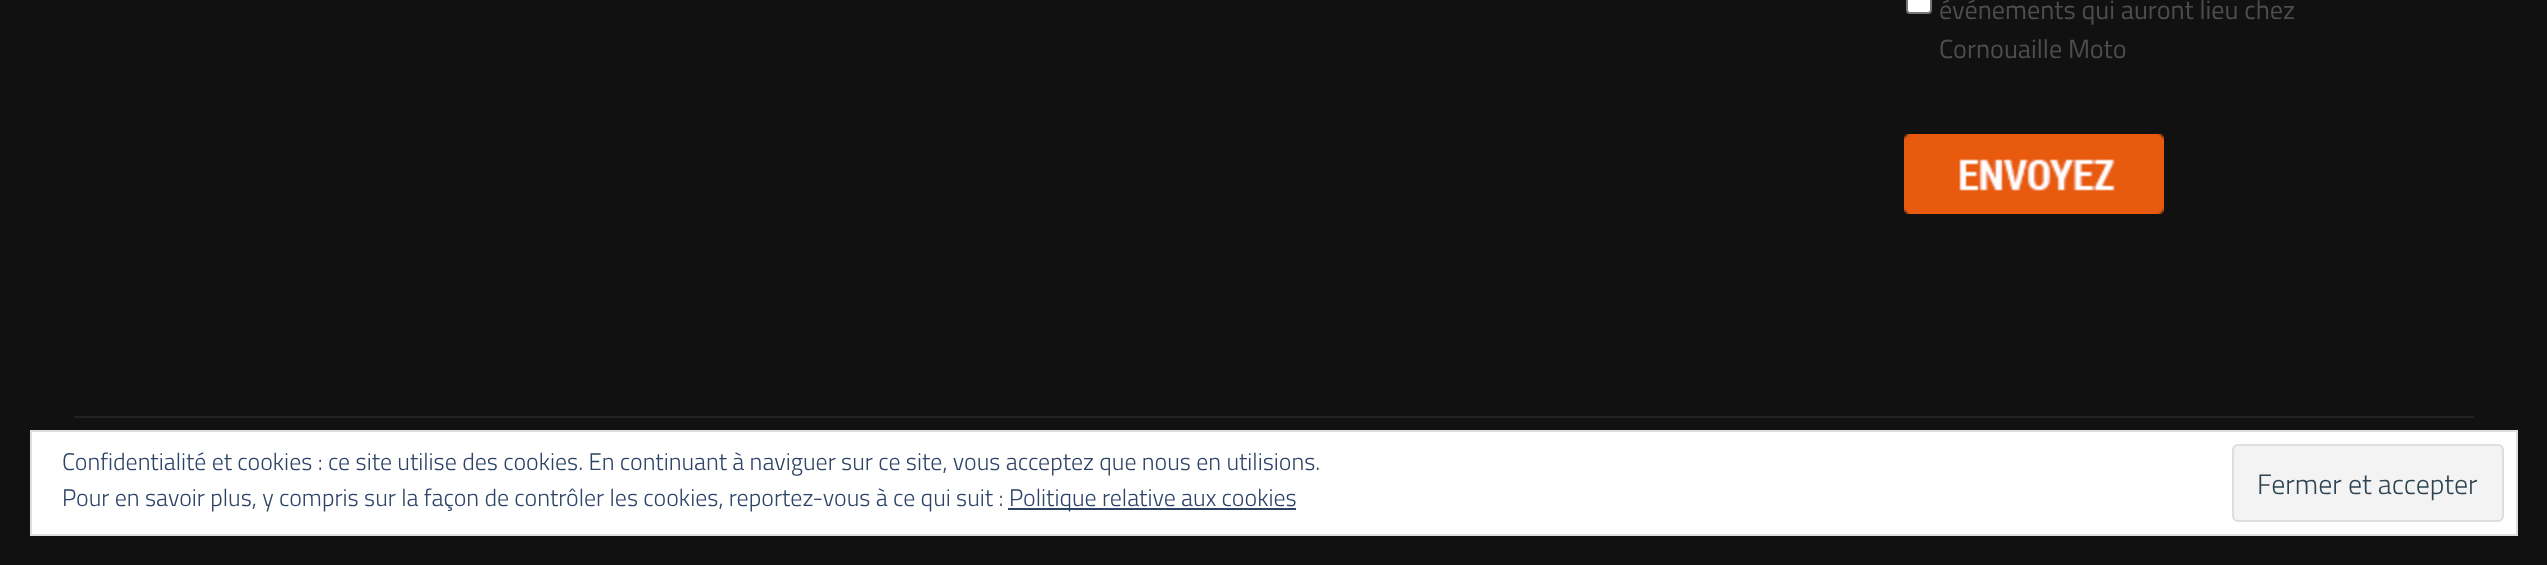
<svg xmlns="http://www.w3.org/2000/svg" xmlns:xlink="http://www.w3.org/1999/xlink" width="2547" height="565" viewBox="0 0 2547 565">
<style>
.cls-1{font:26.25px Titillium Web;fill:#4d4d4d}
.cls-2{font:300 24px Titillium Web;fill:#2e4467}
.cls-3{font:300 28px Titillium Web;fill:#2e4453}
</style>
<rect width="100%" height="100%" fill="#111111"/>
<rect fill="#ffffff" stroke="#767676" stroke-width="2" x="1907" y="-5" width="24" height="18" rx="3"/>
<image xlink:href="image0.png" x="1904" y="134" width="260" height="80"/>
<rect fill="#222222" x="74" y="416" width="2400" height="2"/>
<rect fill="#ffffff" stroke="#dedede" stroke-width="2" x="31" y="431" width="2486" height="104"/>
<rect fill="#2e4467" x="1008" y="508" width="288" height="2"/>
<rect fill="#f3f3f3" stroke="#dedede" stroke-width="2" x="2233" y="445" width="270" height="76" rx="5"/>
<text class="cls-1"><tspan x="1939" y="19">événements qui auront lieu chez</tspan><tspan x="1939" y="58">Cornouaille Moto</tspan></text>
<text class="cls-2"><tspan x="62" y="470">Confidentialité et cookies : ce site utilise des cookies. En continuant à naviguer sur ce site, vous acceptez que nous en utilisions.</tspan><tspan x="62" y="506">Pour en savoir plus, y compris sur la façon de contrôler les cookies, reportez-vous à ce qui suit :</tspan></text>
<text class="cls-2" x="1009" y="506">Politique relative aux cookies</text>
<text class="cls-3" x="2257" y="494">Fermer et accepter</text>
</svg>
